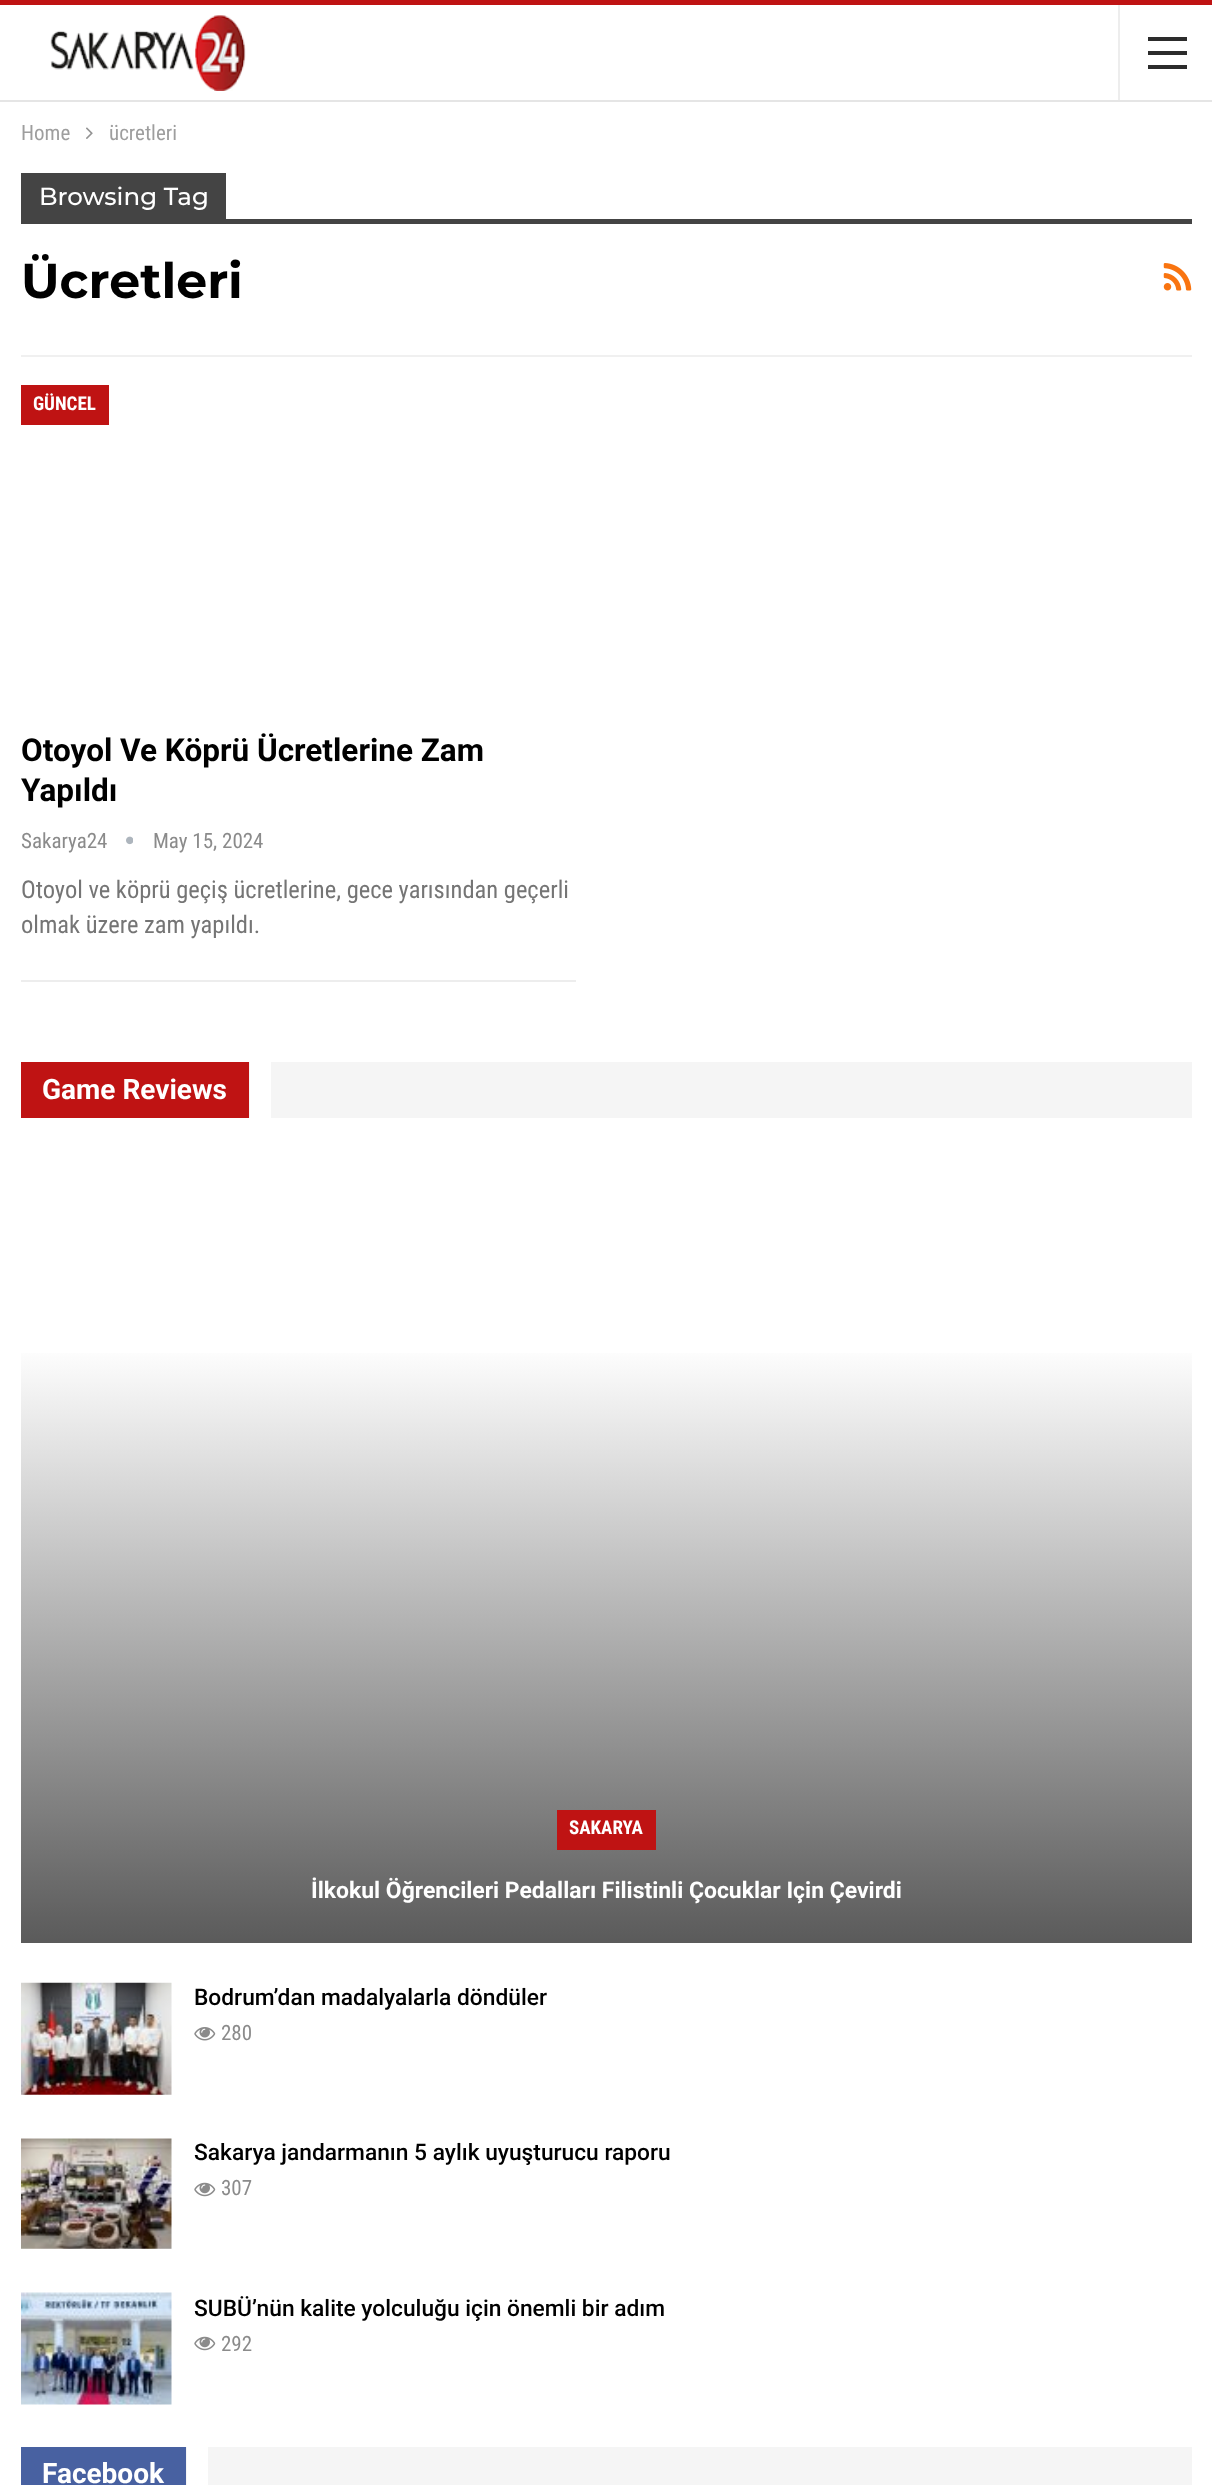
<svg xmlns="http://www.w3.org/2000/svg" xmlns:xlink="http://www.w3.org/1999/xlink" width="1212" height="2485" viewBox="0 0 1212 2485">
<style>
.cls-1{font:21px Roboto Condensed;fill:#9e9e9e}
.cls-2{font:500 24.5px Montserrat;fill:#ffffff}
.cls-3{font:bold 49px Montserrat;fill:#000000}
.cls-4{font:bold 19px Roboto Condensed;fill:#ffffff}
.cls-5{font:bold 31.5px Roboto;fill:#000000}
.cls-6{font:21px Roboto Condensed;fill:#8b8b8b}
.cls-7{font:24.5px Roboto Condensed;fill:#757575}
.cls-8{font:bold 28px Roboto;fill:#ffffff}
.cls-9{font:bold 22.95px Roboto;fill:#ffffff}
.cls-10{font:500 22.75px Roboto;fill:#000000}
</style>
<defs>
<linearGradient id="g1" gradientUnits="userSpaceOnUse" x1="606" y1="1344" x2="606" y2="1944"><stop offset="0" stop-color="#ffffff"/><stop offset="1" stop-color="#5a5a5a"/></linearGradient>
</defs>
<rect width="100%" height="100%" fill="#bf1313"/>
<rect fill="#ffffff" x="0" y="5" width="1212" height="95"/>
<rect fill="#e5e5e5" x="0" y="100" width="1212" height="2"/>
<image xlink:href="image0.png" x="50" y="15" width="196" height="76"/>
<rect fill="#ededed" x="1118" y="5" width="2" height="95"/>
<rect fill="#2c2c2c" x="1148" y="51" width="39" height="4"/>
<rect fill="#2c2c2c" x="1148" y="37" width="39" height="4"/>
<rect fill="#2c2c2c" x="1148" y="65" width="39" height="4"/>
<rect fill="#ffffff" x="0" y="102" width="1212" height="2383"/>
<image xlink:href="image1.png" x="86" y="127" width="7" height="12"/>
<rect fill="#f0f0f0" x="21" y="355" width="1171" height="2"/>
<rect fill="#444444" x="21" y="173" width="205" height="46"/>
<rect fill="#444444" x="21" y="219" width="1171" height="5"/>
<image xlink:href="image2.png" x="1163" y="263" width="29" height="28"/>
<rect fill="#bf1313" x="21" y="385" width="88" height="40"/>
<image xlink:href="image3.png" x="126" y="836" width="7" height="9"/>
<rect fill="#ededed" x="21" y="980" width="555" height="2"/>
<rect fill="#bf1313" x="21" y="1062" width="228" height="56"/>
<rect fill="#f5f5f5" x="249" y="1062" width="943" height="56"/>
<rect fill="#ffffff" x="250" y="1062" width="21" height="56"/>
<rect fill="url(#g1)" x="21" y="1353" width="1171" height="590"/>
<rect fill="#bf1313" x="557" y="1810" width="99" height="40"/>
<image xlink:href="image4.png" x="21" y="1982" width="151" height="113"/>
<image xlink:href="image5.png" x="194" y="2027" width="22" height="14"/>
<image xlink:href="image6.png" x="21" y="2138" width="151" height="111"/>
<image xlink:href="image7.png" x="194" y="2182" width="22" height="15"/>
<image xlink:href="image8.png" x="21" y="2292" width="151" height="113"/>
<image xlink:href="image7.png" x="194" y="2336" width="22" height="15"/>
<rect fill="#4861a1" x="21" y="2447" width="165" height="38"/>
<rect fill="#f5f5f5" x="186" y="2447" width="1006" height="38"/>
<rect fill="#ffffff" x="187" y="2447" width="21" height="38"/>
<text class="cls-1" x="21" y="140">Home</text>
<text class="cls-1" x="109" y="140">ücretleri</text>
<text class="cls-2" x="39" y="205">Browsing Tag</text>
<text class="cls-3" x="21" y="298">Ücretleri</text>
<text class="cls-4" x="33" y="410">GÜNCEL</text>
<text class="cls-5"><tspan x="21" y="761">Otoyol Ve Köprü Ücretlerine Zam</tspan><tspan x="21" y="801">Yapıldı</tspan></text>
<text class="cls-6" x="21" y="848">Sakarya24</text>
<text class="cls-6" x="153" y="848">May 15, 2024</text>
<text class="cls-7"><tspan x="21" y="898">Otoyol ve köprü geçiş ücretlerine, gece yarısından geçerli</tspan><tspan x="21" y="933">olmak üzere zam yapıldı.</tspan></text>
<text class="cls-8" x="42" y="1099">Game Reviews</text>
<text class="cls-4" x="569" y="1834">SAKARYA</text>
<text class="cls-9" x="311" y="1898">İlkokul Öğrencileri Pedalları Filistinli Çocuklar Için Çevirdi</text>
<text class="cls-10" x="194" y="2005">Bodrum’dan madalyalarla döndüler</text>
<text class="cls-6" x="221" y="2040">280</text>
<text class="cls-10" x="194" y="2160">Sakarya jandarmanın 5 aylık uyuşturucu raporu</text>
<text class="cls-6" x="221" y="2195">307</text>
<text class="cls-10" x="194" y="2316">SUBÜ’nün kalite yolculuğu için önemli bir adım</text>
<text class="cls-6" x="221" y="2351">292</text>
<text class="cls-8" x="42" y="2483">Facebook</text>
</svg>
